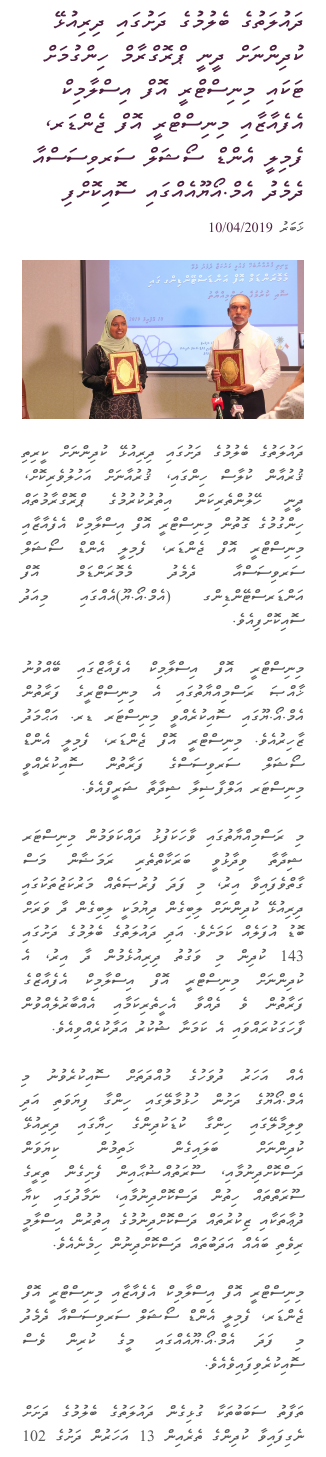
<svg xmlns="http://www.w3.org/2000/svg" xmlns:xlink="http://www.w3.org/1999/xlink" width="326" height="1457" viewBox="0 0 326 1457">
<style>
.cls-1{font:italic 22.75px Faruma;direction:rtl;fill:#4f2241}
.cls-2{font:italic 14.25px Faruma;direction:rtl;fill:#58585a}
.cls-3{font:italic 14.25px Faruma;fill:#4f2241}
.cls-4{font:italic 16px Faruma;direction:rtl;fill:#58585a}
.cls-5{font:italic 16px Faruma;fill:#58585a}
</style>
<rect width="100%" height="100%" fill="#ffffff"/>
<image xlink:href="image0.png" x="22" y="260" width="282" height="159"/>
<text class="cls-1"><tspan x="304" y="28">ދައުލަތުގެ ބެލުމުގެ ދަށުގައި ދިރިއުޅޭ</tspan><tspan x="304" y="62">ކުދިންނަށް ދީނީ ޕްރޮގްރާމް ހިންގުމަށް</tspan><tspan x="304" y="96">ޓަކައި މިނިސްޓްރީ އޮފް އިސްލާމިކް</tspan><tspan x="304" y="130">އެފެއާޒާއި މިނިސްޓްރީ އޮފް ޖެންޑަރ،</tspan><tspan x="304" y="164">ފެމިލީ އެންޑް ސޯޝަލް ސަރވިސަސްއާ</tspan><tspan x="304" y="198">ދެމެދު އެމް.އޯޔޫއެއްގައި ސޮއިކޮށްފި</tspan></text>
<text class="cls-2" x="304" y="232">ޚަބަރު</text>
<text class="cls-3" x="208" y="232">10/04/2019</text>
<text class="cls-4"><tspan x="304" y="457" word-spacing="3">ދައުލަތުގެ ބެލުމުގެ ދަށުގައި ދިރިއުޅޭ ކުދިންނަށް ކީރިތި</tspan><tspan x="304" y="481" word-spacing="5">ޤުރުއާން ކުލާސް ހިންގައި، ޤުރުއާނަށް އަހުލުވެރިކޮށް،</tspan><tspan x="304" y="505" word-spacing="15">ދީނީ ހޭލުންތެރިކަން އިތުރުކުރުމުގެ ޕްރޮގްރާމުތައް</tspan><tspan x="304" y="529" word-spacing="0.5">ހިންގުމުގެ ގޮތުން މިނިސްޓްރީ އޮފް އިސްލާމިކް އެފެއާޒާއި</tspan><tspan x="304" y="553" word-spacing="6.25">މިނިސްޓްރީ އޮފް ޖެންޑަރ، ފެމިލީ އެންޑް ސޯޝަލް</tspan><tspan x="304" y="577" word-spacing="28.5">ސަރވިސަސްއާ ދެމެދު މެމޮރަންޑަމް އޮފް</tspan><tspan x="304" y="601" word-spacing="24">އަންޑަރސްޓޭންޑިންގ (އެމް.އޯ.ޔޫ)އެއްގައި މިއަދު</tspan><tspan x="304" y="625">ސޮއިކޮށްފިއެވެ.</tspan></text>
<text class="cls-4"><tspan x="304" y="673" word-spacing="9.5">މިނިސްޓްރީ އޮފް އިސްލާމިކް އެފެއާޒްގައި ބޭއްވުނު</tspan><tspan x="304" y="697" word-spacing="7">ޚާއްޞަ ރަސްމިއްޔާތުގައި އެ މިނިސްޓްރީގެ ފަރާތުން</tspan><tspan x="304" y="721" word-spacing="4">އެމް.އޯ.ޔޫގައި ސޮއިކުރެއްވީ މިނިސްޓަރ ޑރ. އަޙްމަދު</tspan><tspan x="304" y="745" word-spacing="4.5">ޒާހިރުއެވެ. މިނިސްޓްރީ އޮފް ޖެންޑަރ، ފެމިލީ އެންޑް</tspan><tspan x="304" y="769" word-spacing="16">ސޯޝަލް ސަރވިސަސްގެ ފަރާތުން ސޮއިކުރެއްވީ</tspan><tspan x="304" y="793">މިނިސްޓަރ އަލްފާޟިލާ ޝިދާތާ ޝަރީފްއެވެ.</tspan></text>
<text class="cls-4"><tspan x="304" y="841" word-spacing="2.5">މި ރަސްމިއްޔާތުގައި ވާހަކަފުޅު ދައްކަވަމުން މިނިސްޓަރ</tspan><tspan x="304" y="865" word-spacing="13.5">ޝިދާތާ ވިދާޅުވީ ބަރަކާތްތެރި ރަމަޟާން މަސް</tspan><tspan x="304" y="889" word-spacing="2.5">ގާތްވެފައިވާ އިރު، މި ފަދަ ފުރުޞަތެއް މަރުކަޒުތަކުގައި</tspan><tspan x="304" y="913" word-spacing="0.5">ދިރިއުޅޭ ކުދިންނަށް ލިބިގެން ދިޔުމަކީ ލިބިގެން ދާ ވަރަށް</tspan><tspan x="304" y="937" word-spacing="1.25">ބޮޑު އުފަލެއް ކަމަށެވެ. އަދި ދައުލަތުގެ ބެލުމުގެ ދަށުގައި</tspan></text>
<text class="cls-5" x="280" y="961">143</text>
<text class="cls-4" x="266" y="961" word-spacing="5.75">ކުދިން މި ވަގުތު ދިރިއުޅެމުން ދާ އިރު، އެ</text>
<text class="cls-4"><tspan x="304" y="985" word-spacing="9">ކުދިންނަށް މިނިސްޓްރީ އޮފް އިސްލާމިކް އެފެއާޒްގެ</tspan><tspan x="304" y="1009" word-spacing="10">ފަރާތުން ވެ ދެއްވާ އެހީތެރިކަމާއި އެއްބާރުލެއްވުން</tspan><tspan x="304" y="1033">ފާހަގަކުރައްވައި އެ ކަމަނާ ޝުކުރު އަދާކުރެއްވިއެވެ.</tspan></text>
<text class="cls-4"><tspan x="304" y="1081" word-spacing="9.5">އެއް އަހަރު ދުވަހުގެ މުއްދަތަށް ސޮއިކުރެވުނު މި</tspan><tspan x="304" y="1105" word-spacing="6">އެމް.އޯޔޫގެ ދަށުން ހުޅުމާލޭގައި ހިންގާ ފިޔަވަތި އަދި</tspan><tspan x="304" y="1129" word-spacing="10">ވިލިމާލޭގައި ހިންގާ ކުޑަކުދިންގެ ހިޔާގައި ދިރިއުޅޭ</tspan><tspan x="304" y="1153" word-spacing="30">ކުދިންނަށް ބަލައިގެން ޚަތިމުން ކިޔަވަން</tspan><tspan x="304" y="1177" word-spacing="7">ދަސްކޮށްދިނުމާއި، ސޫރަތުއްޟުޙާއިން ފެށިގެން ތިރީގެ</tspan><tspan x="304" y="1201" word-spacing="5.5">ސޫރަތްތައް ހިތުން ދަސްކޮށްދިނުމާއި، ނަމާދުގައި ކިޔާ</tspan><tspan x="304" y="1225" word-spacing="0.5">ދުޢާތަކާއި ޒިކުރުތައް ދަސްކޮށްދިނުމުގެ އިތުރުން އިސްލާމީ</tspan><tspan x="304" y="1249">ރިވެތި ބައެއް އަދަބުތައް ދަސްކޮށްދިނުން ހިމެނެއެވެ.</tspan></text>
<text class="cls-4"><tspan x="304" y="1297" word-spacing="1">މިނިސްޓްރީ އޮފް އިސްލާމިކް އެފެއާޒާއި މިނިސްޓްރީ އޮފް</tspan><tspan x="304" y="1321" word-spacing="0.75">ޖެންޑަރ، ފެމިލީ އެންޑް ސޯޝަލް ސަރވިސަސްއާ ދެމެދު</tspan><tspan x="304" y="1345" word-spacing="13">މި ފަދަ އެމް.އޯ.ޔޫއެއްގައި މީގެ ކުރިން ވެސް</tspan><tspan x="304" y="1369">ސޮއިކުރެވިފައިވެއެވެ.</tspan></text>
<text class="cls-4"><tspan x="304" y="1417" word-spacing="4.5">ތަފާތު ސަބަބުތަކާ ގުޅިގެން ދައުލަތުގެ ބެލުމުގެ ދަށަށް</tspan><tspan x="304" y="1441" word-spacing="1">ނެގިފައިވާ ކުދިންގެ ތެރެއިން</tspan></text>
<text class="cls-5" x="139" y="1441">13</text>
<text class="cls-4" x="129" y="1441" word-spacing="1">އަހަރުން ދަށުގެ</text>
<text class="cls-5" x="22" y="1441">102</text>
</svg>
